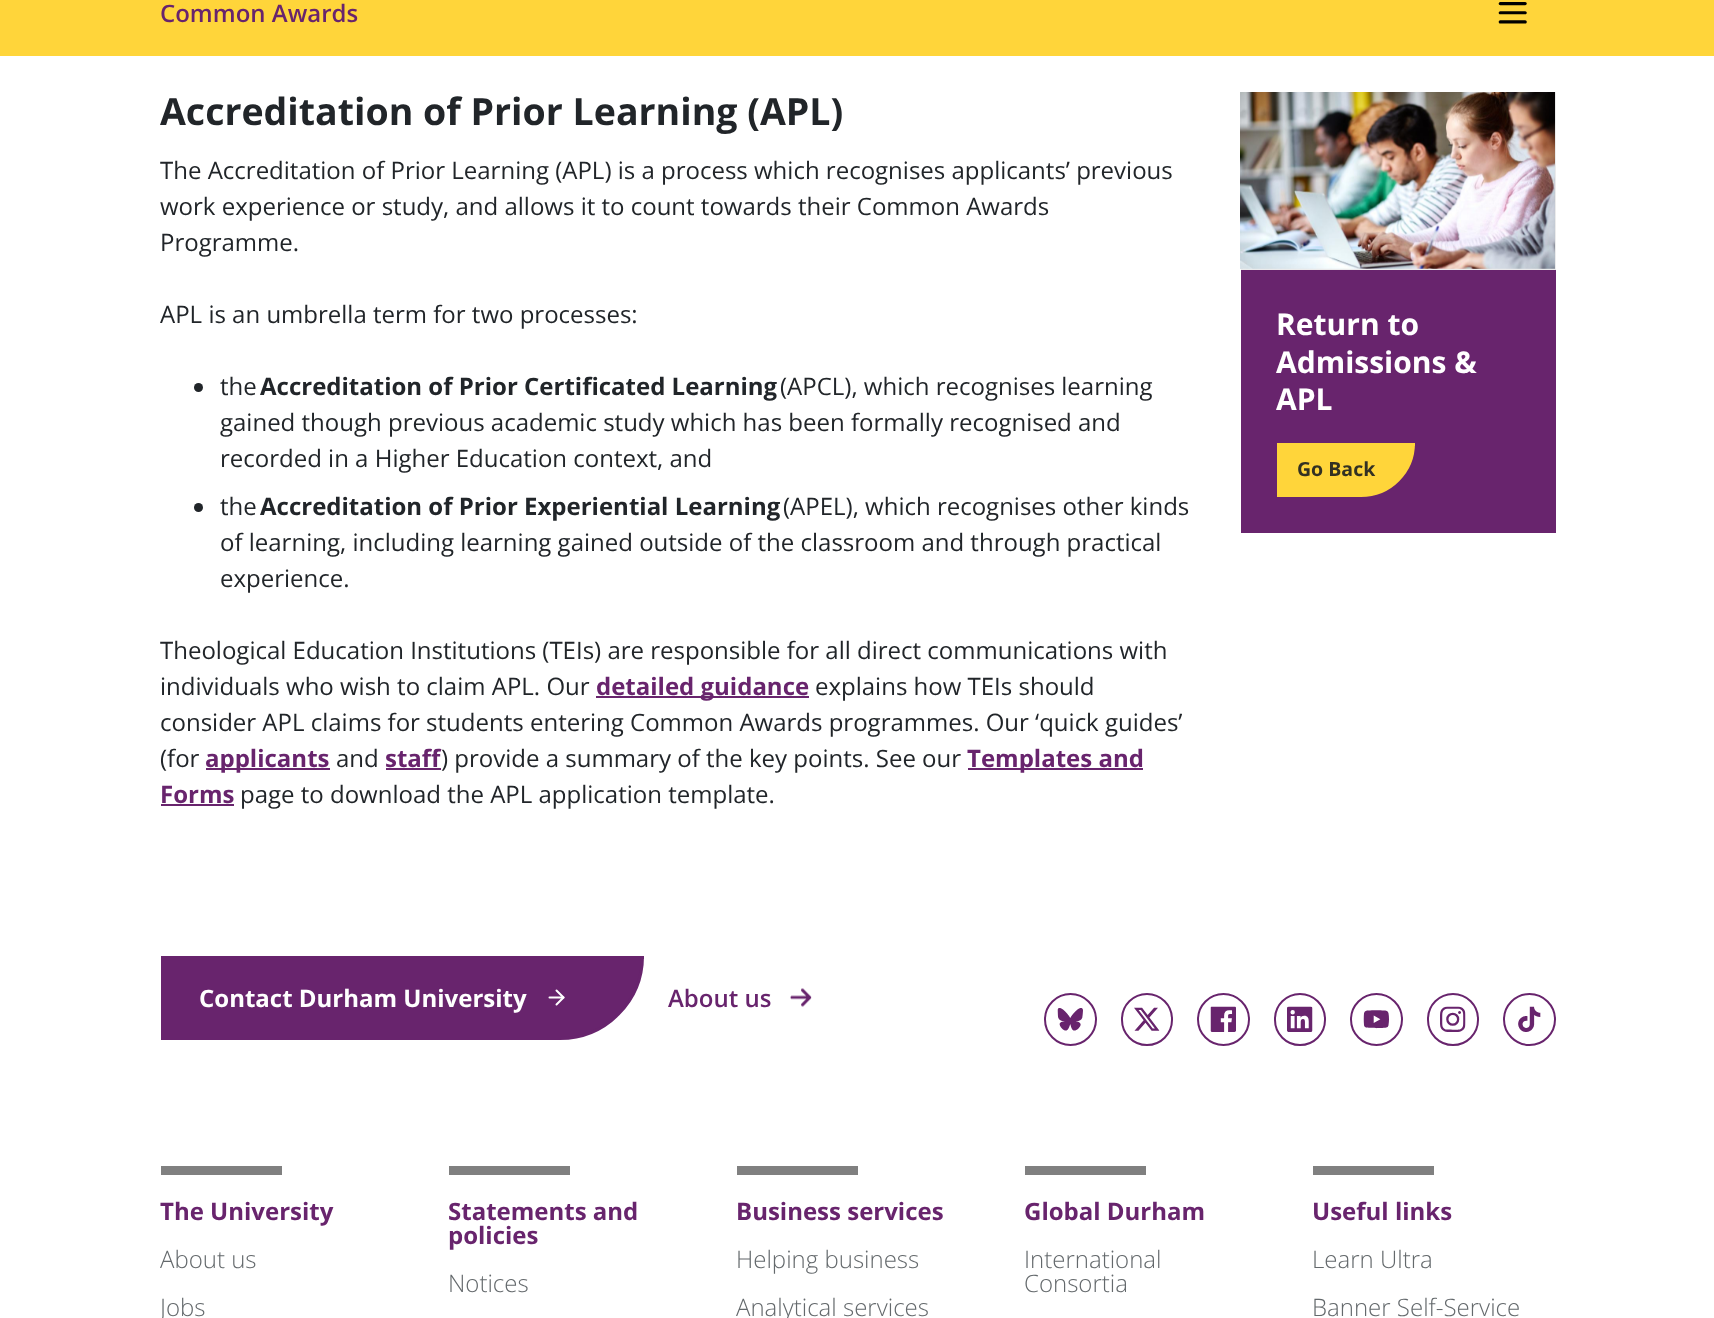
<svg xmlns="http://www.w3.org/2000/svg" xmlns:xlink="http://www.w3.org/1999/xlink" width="1714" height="1318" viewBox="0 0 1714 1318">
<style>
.cls-1{font:600 24px Open Sans;fill:#68246d}
.cls-2{font:bold 37.5px Open Sans;fill:#212529}
.cls-3{font:24px Open Sans;fill:#212529}
.cls-4{font:bold 24px Open Sans;fill:#212529}
.cls-5{font:bold 24px Open Sans;fill:#68246d}
.cls-6{font:bold 30px Open Sans;fill:#ffffff}
.cls-7{font:bold 19.5px Open Sans;fill:#333123}
.cls-8{font:bold 24px Open Sans;fill:#ffffff}
.cls-9{font:300 24px Open Sans;fill:#64696c}
</style>
<rect width="100%" height="100%" fill="#ffffff"/>
<rect fill="#ffd53a" x="0" y="0" width="1714" height="56"/>
<image xlink:href="image0.png" x="1498" y="2" width="29" height="22"/>
<circle fill="#212529" cx="198.5" cy="387.5" r="4.5"/>
<circle fill="#212529" cx="198.5" cy="507.5" r="4.5"/>
<rect fill="#68246d" x="596" y="696" width="213" height="2"/>
<rect fill="#68246d" x="206" y="768" width="124" height="2"/>
<rect fill="#68246d" x="386" y="768" width="55" height="2"/>
<rect fill="#68246d" x="968" y="768" width="175" height="2"/>
<rect fill="#68246d" x="161" y="804" width="73" height="2"/>
<rect fill="#68246d" x="1241" y="270" width="315" height="263"/>
<rect fill="#ebebeb" x="1241" y="92" width="315" height="178"/>
<image xlink:href="image1.png" x="1240" y="92" width="315" height="177"/>
<path fill="#ffd53a" stroke="#ffd53a" stroke-width="3" d="M1278.5 444.5H1413.5V443C1413.5 472 1390 495.5 1361 495.5H1278.5Z"/>
<path fill="#68246d" stroke="#68246d" stroke-width="3" d="M162.5 957.5H642.5V956C642.5 1001.5 605.5 1038.5 560 1038.5H162.5Z"/>
<image xlink:href="image2.png" x="548" y="989" width="17" height="17"/>
<image xlink:href="image3.png" x="790" y="988" width="22" height="19"/>
<circle fill="none" stroke="#68246d" stroke-width="2" cx="1070.5" cy="1019.5" r="25.5"/>
<image xlink:href="image4.png" x="1057" y="1008" width="26" height="23"/>
<rect fill="none" stroke="#68246d" stroke-width="2" x="1122" y="994" width="50" height="51" rx="25"/>
<image xlink:href="image5.png" x="1134" y="1007" width="26" height="24"/>
<circle fill="none" stroke="#68246d" stroke-width="2" cx="1223.5" cy="1019.5" r="25.5"/>
<image xlink:href="image6.png" x="1210" y="1006" width="26" height="26"/>
<rect fill="none" stroke="#68246d" stroke-width="2" x="1275" y="994" width="50" height="51" rx="25"/>
<image xlink:href="image7.png" x="1287" y="1006" width="26" height="26"/>
<circle fill="none" stroke="#68246d" stroke-width="2" cx="1376.5" cy="1019.5" r="25.5"/>
<image xlink:href="image8.png" x="1363" y="1010" width="26" height="19"/>
<rect fill="none" stroke="#68246d" stroke-width="2" x="1428" y="994" width="50" height="51" rx="25"/>
<image xlink:href="image9.png" x="1440" y="1006" width="26" height="26"/>
<circle fill="none" stroke="#68246d" stroke-width="2" cx="1529.5" cy="1019.5" r="25.5"/>
<image xlink:href="image10.png" x="1518" y="1006" width="23" height="26"/>
<rect fill="#808080" x="161" y="1166" width="121" height="9"/>
<rect fill="#808080" x="449" y="1166" width="121" height="9"/>
<rect fill="#808080" x="737" y="1166" width="121" height="9"/>
<rect fill="#808080" x="1025" y="1166" width="121" height="9"/>
<rect fill="#808080" x="1313" y="1166" width="121" height="9"/>
<text class="cls-1" x="160" y="22">Common Awards</text>
<text class="cls-2" x="160" y="125">Accreditation of Prior Learning (APL)</text>
<text class="cls-3"><tspan x="160" y="179">The Accreditation of Prior Learning (APL) is a process which recognises applicants’ previous</tspan><tspan x="160" y="215">work experience or study, and allows it to count towards their Common Awards</tspan><tspan x="160" y="251">Programme.</tspan></text>
<text class="cls-3" x="160" y="323">APL is an umbrella term for two processes:</text>
<text class="cls-3" x="220" y="395">the</text>
<text class="cls-4" x="260" y="395">Accreditation of Prior Certificated Learning</text>
<text class="cls-3" x="780" y="395">(APCL), which recognises learning</text>
<text class="cls-3"><tspan x="220" y="431">gained though previous academic study which has been formally recognised and</tspan><tspan x="220" y="467">recorded in a Higher Education context, and</tspan></text>
<text class="cls-3" x="220" y="515">the</text>
<text class="cls-4" x="260" y="515">Accreditation of Prior Experiential Learning</text>
<text class="cls-3" x="783" y="515">(APEL), which recognises other kinds</text>
<text class="cls-3"><tspan x="220" y="551">of learning, including learning gained outside of the classroom and through practical</tspan><tspan x="220" y="587">experience.</tspan></text>
<text class="cls-3"><tspan x="160" y="659">Theological Education Institutions (TEIs) are responsible for all direct communications with</tspan><tspan x="160" y="695">individuals who wish to claim APL. Our</tspan></text>
<text class="cls-5" x="596" y="695">detailed guidance</text>
<text class="cls-3" x="815" y="695">explains how TEIs should</text>
<text class="cls-3"><tspan x="160" y="731">consider APL claims for students entering Common Awards programmes. Our ‘quick guides’</tspan><tspan x="160" y="767">(for</tspan></text>
<text class="cls-5" x="205" y="767">applicants</text>
<text class="cls-3" x="336" y="767">and</text>
<text class="cls-5" x="385" y="767">staff</text>
<text class="cls-3" x="441" y="767">) provide a summary of the key points. See our</text>
<text class="cls-5" x="967" y="767">Templates and</text>
<text class="cls-5" x="160" y="803">Forms</text>
<text class="cls-3" x="240" y="803">page to download the APL application template.</text>
<text class="cls-6"><tspan x="1276" y="335">Return to</tspan><tspan x="1276" y="373">Admissions &amp;</tspan><tspan x="1276" y="410">APL</tspan></text>
<text class="cls-7" x="1297" y="476">Go Back</text>
<text class="cls-8" x="199" y="1007">Contact Durham University</text>
<text class="cls-1" x="668" y="1007">About us</text>
<text class="cls-5" x="160" y="1220">The University</text>
<text class="cls-9" x="160" y="1268">About us</text>
<text class="cls-9" x="160" y="1316">Jobs</text>
<text class="cls-5"><tspan x="448" y="1220">Statements and</tspan><tspan x="448" y="1244">policies</tspan></text>
<text class="cls-9" x="448" y="1292">Notices</text>
<text class="cls-5" x="736" y="1220">Business services</text>
<text class="cls-9" x="736" y="1268">Helping business</text>
<text class="cls-9" x="736" y="1316">Analytical services</text>
<text class="cls-5" x="1024" y="1220">Global Durham</text>
<text class="cls-9"><tspan x="1024" y="1268">International</tspan><tspan x="1024" y="1292">Consortia</tspan></text>
<text class="cls-5" x="1312" y="1220">Useful links</text>
<text class="cls-9" x="1312" y="1268">Learn Ultra</text>
<text class="cls-9" x="1312" y="1316">Banner Self-Service</text>
</svg>
